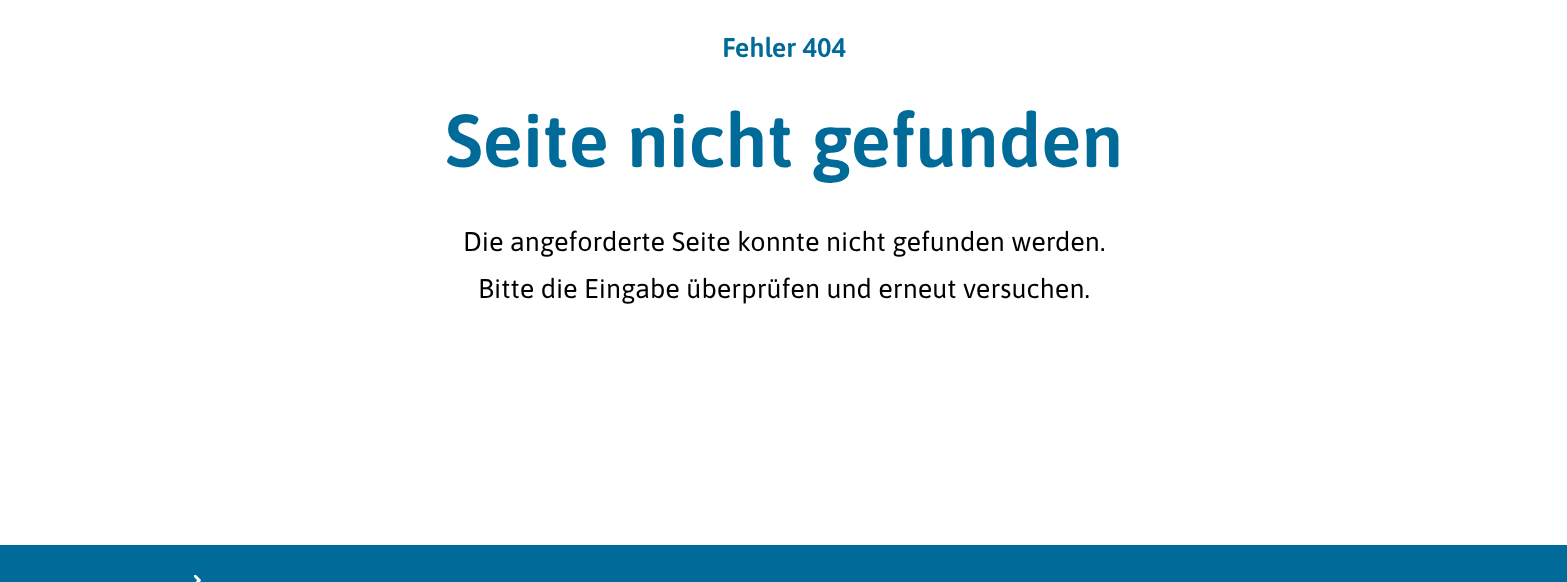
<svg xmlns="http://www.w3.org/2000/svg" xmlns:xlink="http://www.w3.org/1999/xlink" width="1567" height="582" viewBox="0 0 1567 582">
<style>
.cls-1{font:600 27px Asap;fill:#006b99}
.cls-2{font:600 75px Asap;fill:#006b99}
.cls-3{font:27px Asap;fill:#000000}
</style>
<rect width="100%" height="100%" fill="#ffffff"/>
<rect fill="#006b99" x="0" y="545" width="1567" height="37"/>
<image xlink:href="image0.png" x="194" y="575" width="7" height="7"/>
<text class="cls-1" x="722" y="57">Fehler 404</text>
<text class="cls-2" x="445" y="167">Seite nicht gefunden</text>
<text class="cls-3" x="463" y="251">Die angeforderte Seite konnte nicht gefunden werden.</text>
<text class="cls-3" x="478" y="298">Bitte die Eingabe überprüfen und erneut versuchen.</text>
</svg>
